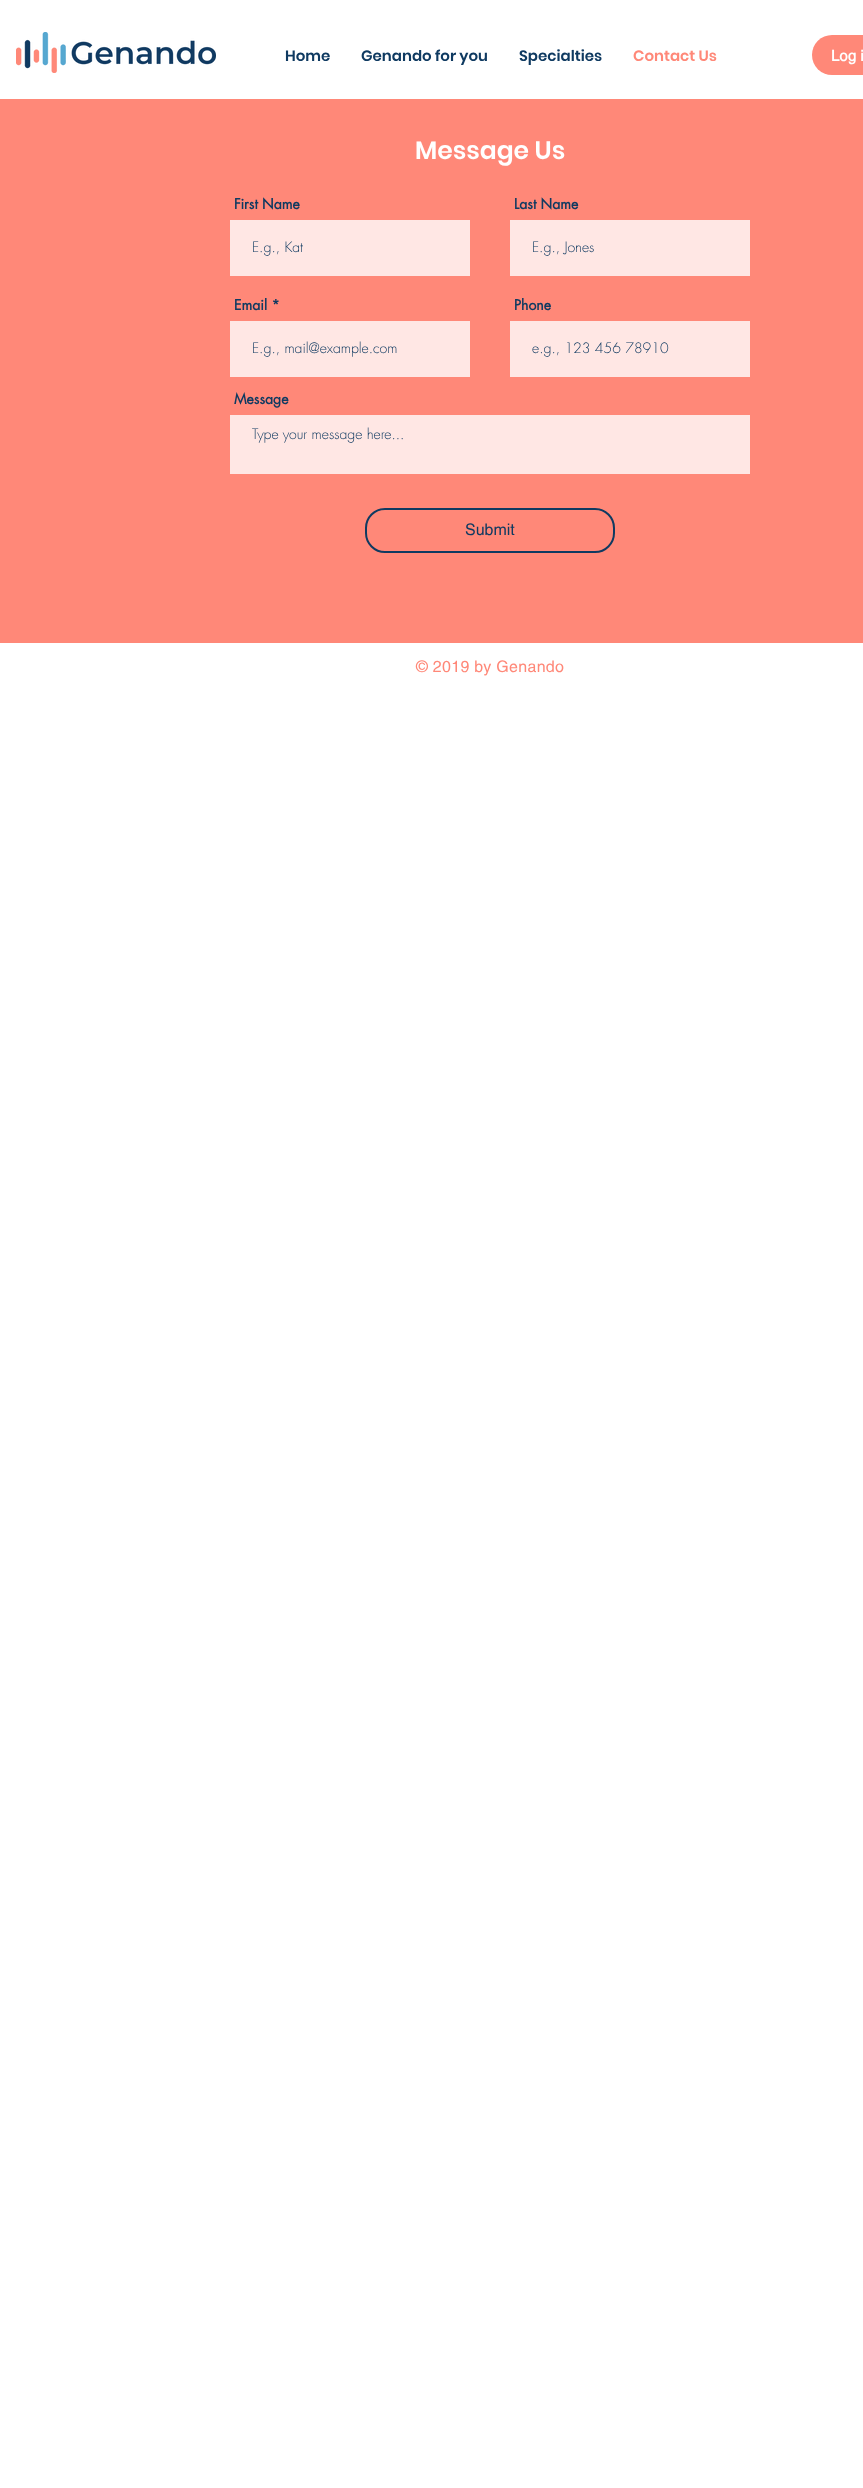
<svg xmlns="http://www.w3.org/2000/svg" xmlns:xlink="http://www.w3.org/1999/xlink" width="863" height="2488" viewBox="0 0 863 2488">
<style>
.cls-1{font:600 15px Poppins;fill:#0f3a61}
.cls-2{font:600 15px Poppins;fill:#ff8878}
.cls-3{font:bold 15px helvetica;fill:#ffffff}
.cls-4{font:600 25px Poppins;fill:#ffffff}
.cls-5{font:bold 14px futura;fill:#0f3a61}
.cls-6{font:300 14px futura;fill:#0f3a61}
.cls-7{font:16px helvetica;fill:#0f3a61}
.cls-8{font:16px helvetica;letter-spacing:0.3px;fill:#ff8878}
</style>
<rect width="100%" height="100%" fill="#ffffff"/>
<image xlink:href="image0.png" x="16" y="32" width="200" height="41"/>
<rect fill="#ff8878" x="812" y="35" width="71" height="40" rx="20"/>
<rect fill="#ff8878" x="0" y="99" width="863" height="544"/>
<rect fill="#ffe7e4" x="230" y="220" width="240" height="56"/>
<rect fill="#ffe7e4" x="510" y="220" width="240" height="56"/>
<rect fill="#ffe7e4" x="230" y="321" width="240" height="56"/>
<rect fill="#ffe7e4" x="510" y="321" width="240" height="56"/>
<rect fill="#ffe7e4" x="230" y="415" width="520" height="59"/>
<rect fill="none" stroke="#0f3a61" stroke-width="2" x="366" y="509" width="248" height="43" rx="19"/>
<text class="cls-1" x="285" y="61">Home</text>
<text class="cls-1" x="361" y="61">Genando for you</text>
<text class="cls-1" x="519" y="61">Specialties</text>
<text class="cls-2" x="633" y="61">Contact Us</text>
<text class="cls-3" x="831" y="61">Log i</text>
<text class="cls-4" x="415" y="159">Message Us</text>
<text class="cls-5" x="234" y="209">First Name</text>
<text class="cls-6" x="252" y="252">E.g., Kat</text>
<text class="cls-5" x="514" y="209">Last Name</text>
<text class="cls-6" x="532" y="252">E.g., Jones</text>
<text class="cls-5" x="234" y="310">Email *</text>
<text class="cls-6" x="252" y="353">E.g., mail@example.com</text>
<text class="cls-5" x="514" y="310">Phone</text>
<text class="cls-6" x="532" y="353">e.g., 123 456 78910</text>
<text class="cls-5" x="234" y="404">Message</text>
<text class="cls-6" x="252" y="439">Type your message here...</text>
<text class="cls-7" x="465" y="535">Submit</text>
<text class="cls-8" x="416" y="672">© 2019 by Genando</text>
</svg>
